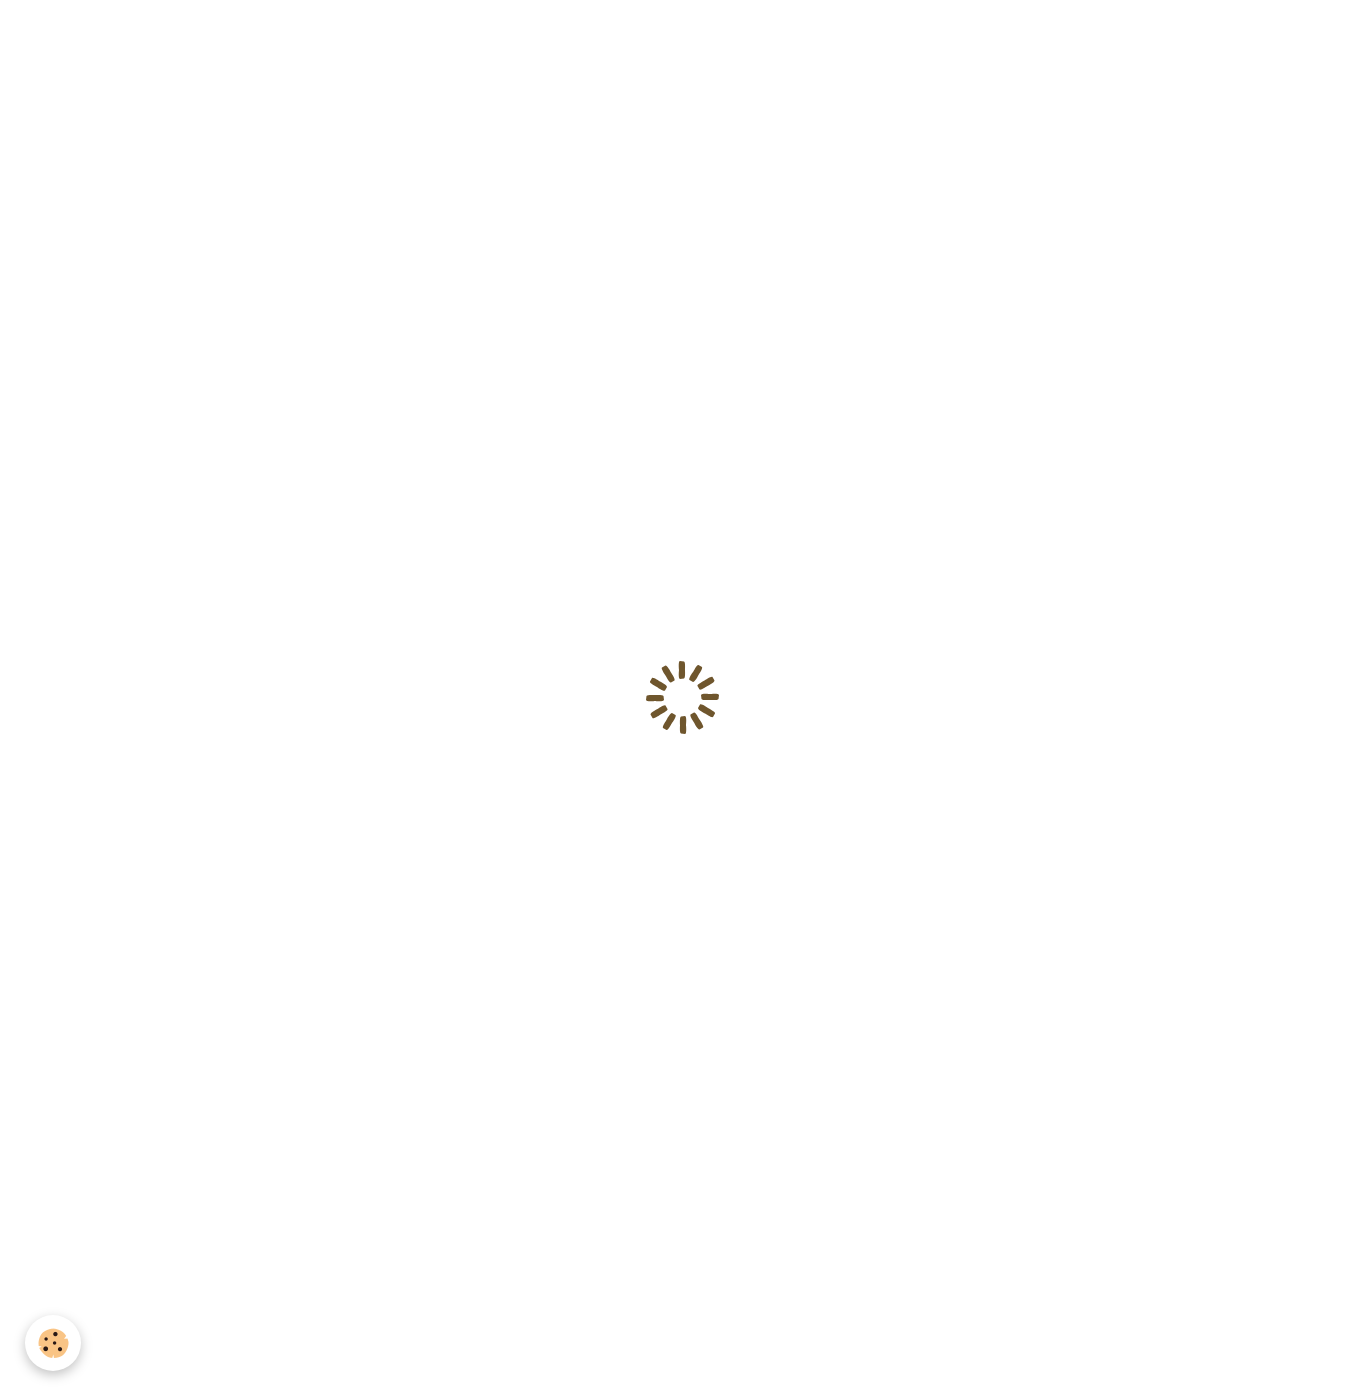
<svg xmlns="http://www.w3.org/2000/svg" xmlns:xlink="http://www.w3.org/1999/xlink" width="1364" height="1395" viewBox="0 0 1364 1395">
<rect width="100%" height="100%" fill="#ffffff"/>
<path fill="#6f562d" d="M680 661L684 661.5C685.5 662 685 668.5 685 670C685 671.5 685.5 678 684 678.5L680 679C678 678.5 679 670.5 679 670C679 669.5 678 661 680 661ZM698.5 665L702 667C703 668.5 699 674 698.5 675C698 676 695 682 693 682L689.5 680C688 679 692.5 672.5 693 672C693.5 671.5 697 664 698.5 665Z"/>
<path fill="#6f562d" d="M712.5 677L714.5 680.5C714.5 682.5 708.5 685.5 707.5 686C706.5 686.5 701 690.5 699.5 689.5L697.5 686C696.5 684.5 704 681 704.5 680.5C705 680 712 675.5 712.5 677ZM719 695L718.5 699C718 700.5 711.5 700 710 700C708.5 700 702 700.5 701.5 699L701 695C701.5 693 709.5 694 710 694C710.5 694 719 693 719 695ZM715 713.5L713 717C711.5 718 706 714 705 713.5C704 713 698 710 698 708L700 704.5C701 703 707.5 707.5 708 708C708.5 708.5 716 712 715 713.5Z"/>
<path fill="#6f562d" d="M703 727.5L699.5 729.5C697.5 729.5 694.5 723.5 694 722.5C693.5 721.5 689.5 716 690.5 714.5L694 712.5C695.5 711.5 699 719 699.5 719.5C700 720 704.5 727 703 727.5ZM685 734L681 733.5C679.5 733 680 726.5 680 725C680 723.5 679.5 717 681 716.5L685 716C687 716.5 686 724.5 686 725C686 725.5 687 734 685 734ZM666.5 730L663 728C662 726.5 666 721 666.5 720C667 719 670 713 672 713L675.5 715C677 716 672.5 722.5 672 723C671.5 723.5 668 731 666.5 730Z"/>
<path fill="#6f562d" d="M652.5 718L650.5 714.5C650.5 712.5 656.5 709.5 657.5 709C658.5 708.5 664 704.5 665.5 705.5L667.5 709C668.5 710.5 661 714 660.5 714.5C660 715 653 719.5 652.5 718ZM646 700L646.5 696C647 694.5 653.5 695 655 695C656.5 695 663 694.5 663.5 696L664 700C663.5 702 655.5 701 655 701C654.5 701 646 702 646 700ZM650 681.5L652 678C653.5 677 659 681 660 681.5C661 682 667 685 667 687L665 690.5C664 692 657.5 687.5 657 687C656.5 686.5 649 683 650 681.5Z"/>
<path fill="#6f562d" d="M662 667.5L665.5 665.5C667.5 665.5 670.5 671.5 671 672.5C671.5 673.5 675.5 679 674.5 680.5L671 682.5C669.5 683.5 666 676 665.5 675.5C665 675 660.5 668 662 667.5Z"/>
<rect fill="#000000" fill-opacity="0.24" filter="blur(6px)" x="25" y="1319" width="56" height="56" rx="28"/>
<circle fill="#ffffff" cx="53" cy="1343" r="28"/>
<image xlink:href="image0.png" x="38" y="1328" width="31" height="30"/>
</svg>
